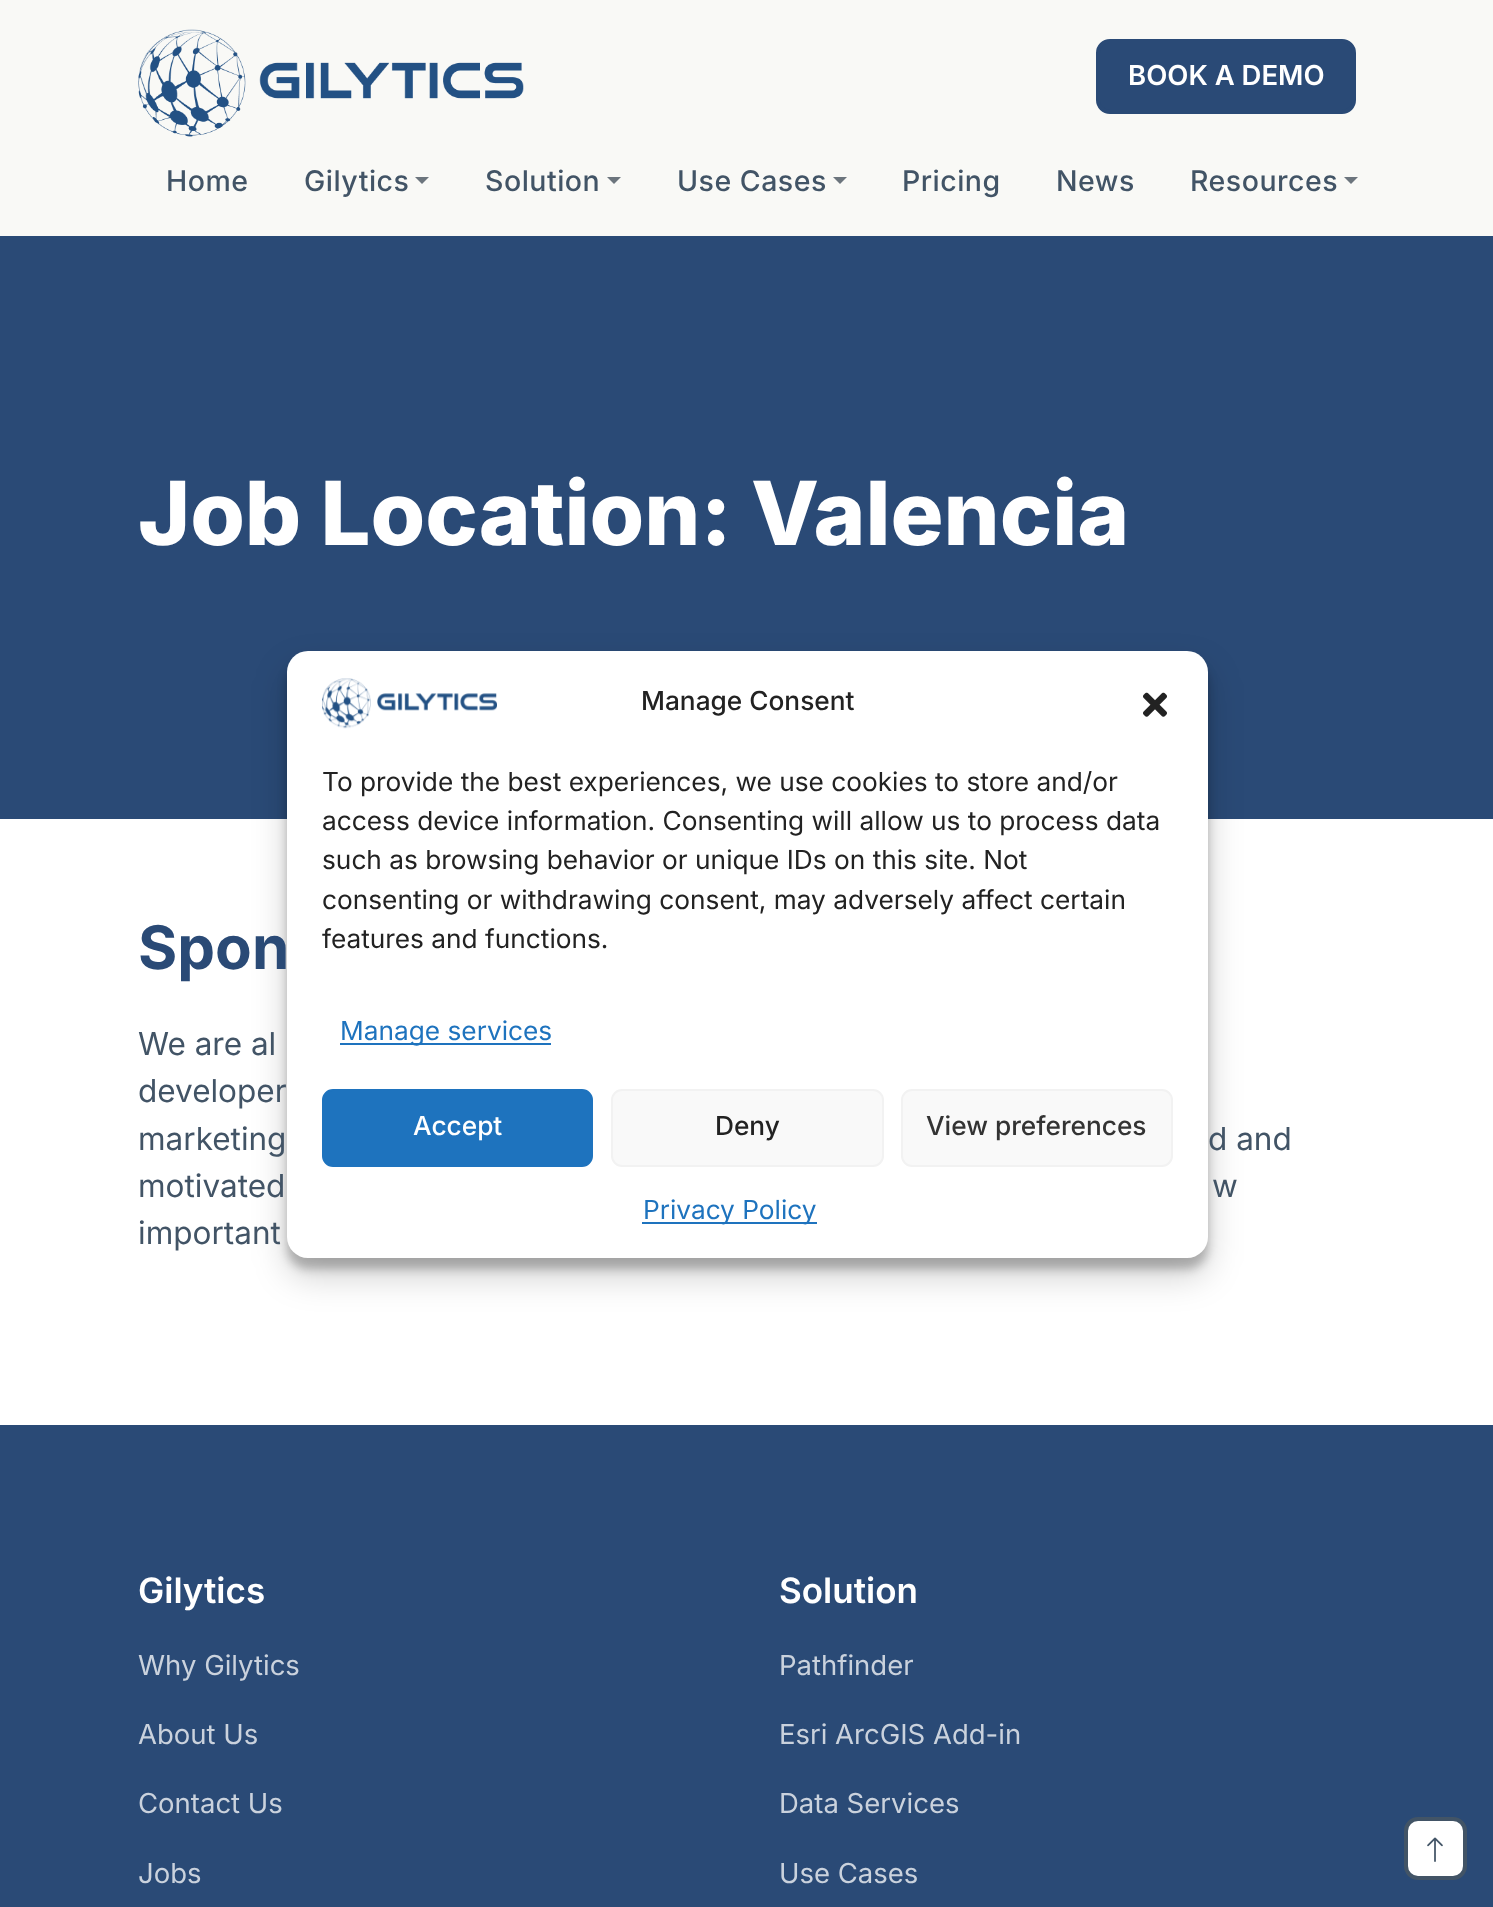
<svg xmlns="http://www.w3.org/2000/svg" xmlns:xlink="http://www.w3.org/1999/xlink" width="1493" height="1907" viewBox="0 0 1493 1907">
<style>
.cls-1{font:600 27.5px Inter;fill:#ffffff}
.cls-2{font:500 28.5px Inter;letter-spacing:0.5px;fill:#425466}
.cls-3{font:800 88.4px Inter;fill:#ffffff}
.cls-4{font:bold 60px Inter;fill:#2a4a76}
.cls-5{font:31.5px Inter;fill:#425466}
.cls-6{font:600 35px Inter;fill:#ffffff}
.cls-7{font:27.5px Inter;fill:#cad2dd}
.cls-8{font:500 26.25px Inter;fill:#222222}
.cls-9{font:26.25px Inter;fill:#222222}
.cls-10{font:26.25px Inter;fill:#1e73be}
.cls-11{font:500 26.25px Inter;fill:#ffffff}
.cls-12{font:500 26.25px Inter;fill:#333333}
</style>
<rect width="100%" height="100%" fill="#ffffff"/>
<rect fill="#f9f9f6" x="0" y="0" width="1493" height="236"/>
<image xlink:href="image0.png" x="138" y="29" width="386" height="108"/>
<rect fill="#2a4a76" stroke="#2a4a76" stroke-width="4" x="1098" y="41" width="256" height="71" rx="12"/>
<path fill="#6c757d" d="M415 177H429L422 184Z"/>
<path fill="#6c757d" d="M607 177H621L614 184Z"/>
<path fill="#6c757d" d="M833 177H847L840 184Z"/>
<path fill="#6c757d" d="M1344 177H1358L1351 184Z"/>
<rect fill="#2a4a76" x="0" y="236" width="1493" height="583"/>
<rect fill="#2a4a76" x="0" y="1425" width="1493" height="482"/>
<rect fill="#ffffff" stroke="#425466" stroke-width="4" x="1406" y="1819" width="59" height="59" rx="12"/>
<image xlink:href="image1.png" x="1427" y="1837" width="16" height="25"/>
<rect fill="#000000" fill-opacity="0.23" filter="blur(5px)" x="287" y="662" width="921" height="607" rx="21"/>
<rect fill="#000000" fill-opacity="0.19" filter="blur(17.5px)" x="287" y="669" width="921" height="607" rx="21"/>
<rect fill="#ffffff" x="287" y="651" width="921" height="607" rx="21"/>
<image xlink:href="image2.png" x="322" y="678" width="175" height="51"/>
<image xlink:href="image3.png" x="1143" y="692" width="24" height="25"/>
<rect fill="#1e73be" x="340" y="1043" width="211" height="2"/>
<rect fill="#1e73be" stroke="#1e73be" stroke-width="2" x="323" y="1090" width="269" height="76" rx="10"/>
<rect fill="#f9f9f9" stroke="#f2f2f2" stroke-width="2" x="612" y="1090" width="271" height="76" rx="10"/>
<rect fill="#f9f9f9" stroke="#f2f2f2" stroke-width="2" x="902" y="1090" width="270" height="76" rx="10"/>
<rect fill="#1e73be" x="642" y="1222" width="175" height="2"/>
<text class="cls-1" x="1128" y="85">BOOK A DEMO</text>
<text class="cls-2" x="166" y="191">Home</text>
<text class="cls-2" x="304" y="191">Gilytics</text>
<text class="cls-2" x="485" y="191">Solution</text>
<text class="cls-2" x="677" y="191">Use Cases</text>
<text class="cls-2" x="902" y="191">Pricing</text>
<text class="cls-2" x="1056" y="191">News</text>
<text class="cls-2" x="1190" y="191">Resources</text>
<text class="cls-3" x="138" y="545">Job Location: Valencia</text>
<text class="cls-4" x="138" y="969">Spon</text>
<text class="cls-5"><tspan x="138" y="1055">We are al</tspan><tspan x="138" y="1102">developer</tspan><tspan x="138" y="1150">marketing</tspan></text>
<text class="cls-5" x="1208" y="1150">d and</text>
<text class="cls-5" x="138" y="1197">motivated</text>
<text class="cls-5" x="1212" y="1197">w</text>
<text class="cls-5" x="138" y="1244">important</text>
<text class="cls-6" x="138" y="1603">Gilytics</text>
<text class="cls-7" x="138" y="1675">Why Gilytics</text>
<text class="cls-7" x="138" y="1744">About Us</text>
<text class="cls-7" x="138" y="1813">Contact Us</text>
<text class="cls-7" x="138" y="1883">Jobs</text>
<text class="cls-6" x="779" y="1603">Solution</text>
<text class="cls-7" x="779" y="1675">Pathfinder</text>
<text class="cls-7" x="779" y="1744">Esri ArcGIS Add-in</text>
<text class="cls-7" x="779" y="1813">Data Services</text>
<text class="cls-7" x="779" y="1883">Use Cases</text>
<text class="cls-8" x="641" y="710">Manage Consent</text>
<text class="cls-9"><tspan x="322" y="791">To provide the best experiences, we use cookies to store and/or</tspan><tspan x="322" y="830">access device information. Consenting will allow us to process data</tspan><tspan x="322" y="869">such as browsing behavior or unique IDs on this site. Not</tspan><tspan x="322" y="909">consenting or withdrawing consent, may adversely affect certain</tspan><tspan x="322" y="948">features and functions.</tspan></text>
<text class="cls-10" x="340" y="1040">Manage services</text>
<text class="cls-11" x="413" y="1135">Accept</text>
<text class="cls-8" x="715" y="1135">Deny</text>
<text class="cls-12" x="926" y="1135">View preferences</text>
<text class="cls-10" x="643" y="1219">Privacy Policy</text>
</svg>
